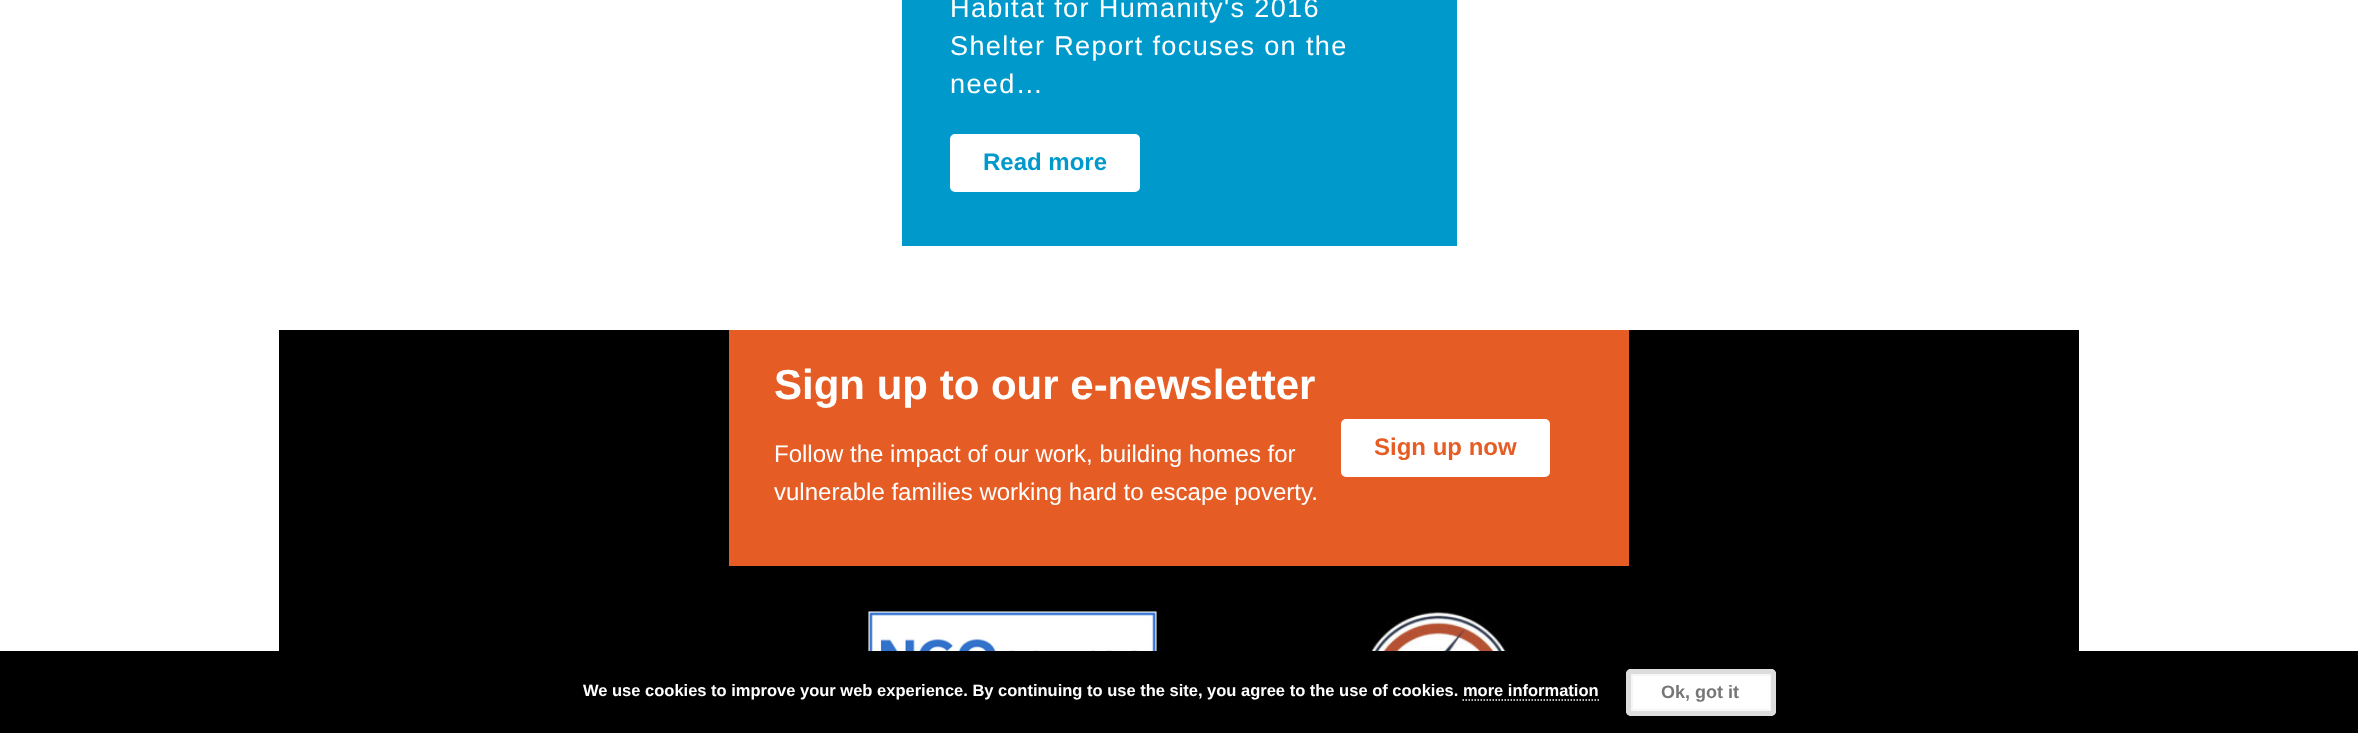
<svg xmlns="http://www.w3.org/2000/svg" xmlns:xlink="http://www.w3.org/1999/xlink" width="2358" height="733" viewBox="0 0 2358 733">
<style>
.cls-1{font:27.1px Liberation Sans;letter-spacing:1.35px;fill:#ffffff}
.cls-2{font:bold 24px Liberation Sans;fill:#0099cc}
.cls-3{font:bold 42px Liberation Sans;fill:#ffffff}
.cls-4{font:24px Liberation Sans;fill:#ffffff}
.cls-5{font:bold 24px Liberation Sans;fill:#e55d25}
.cls-6{font:bold 16.5px Liberation Sans;fill:#ffffff}
.cls-7{font:bold 18px Liberation Sans;fill:#767676}
</style>
<rect width="100%" height="100%" fill="#ffffff"/>
<rect fill="#0099cc" x="902" y="0" width="555" height="246"/>
<rect fill="#ffffff" stroke="#ffffff" stroke-width="5" x="952.5" y="136.5" width="185" height="53" rx="2.5"/>
<rect fill="#000000" x="279" y="330" width="1800" height="321"/>
<rect fill="#e55d25" x="729" y="330" width="900" height="236"/>
<rect fill="#ffffff" stroke="#ffffff" stroke-width="5" x="1343.5" y="421.5" width="204" height="53" rx="2.5"/>
<image xlink:href="image0.png" x="868" y="611" width="289" height="40"/>
<image xlink:href="image1.png" x="1359" y="611" width="158" height="40"/>
<rect fill="#000000" x="0" y="651" width="2358" height="82"/>
<rect fill="#ffffff" x="1626" y="669" width="150" height="47" rx="5"/>
<rect fill="none" stroke="#f6f6f6" stroke-width="2" x="1632" y="675" width="139" height="35"/>
<rect fill="none" stroke="#dddddd" stroke-width="5" x="1628.5" y="671.5" width="145" height="42" rx="2.5"/>
<path fill="none" stroke="#ffffff" stroke-width="1.5" stroke-dasharray="1.5 1.5" d="M1462.5 700H1599"/>
<text class="cls-1"><tspan x="950" y="17">Habitat for Humanity's 2016</tspan><tspan x="950" y="55">Shelter Report focuses on the</tspan><tspan x="950" y="93">need…</tspan></text>
<text class="cls-2" x="983" y="170">Read more</text>
<text class="cls-3" x="774" y="399">Sign up to our e-newsletter</text>
<text class="cls-4"><tspan x="774" y="462">Follow the impact of our work, building homes for</tspan><tspan x="774" y="500">vulnerable families working hard to escape poverty.</tspan></text>
<text class="cls-5" x="1374" y="455">Sign up now</text>
<text class="cls-6" x="583" y="696">We use cookies to improve your web experience. By continuing to use the site, you agree to the use of cookies. more information</text>
<text class="cls-7" x="1661" y="698">Ok, got it</text>
</svg>
